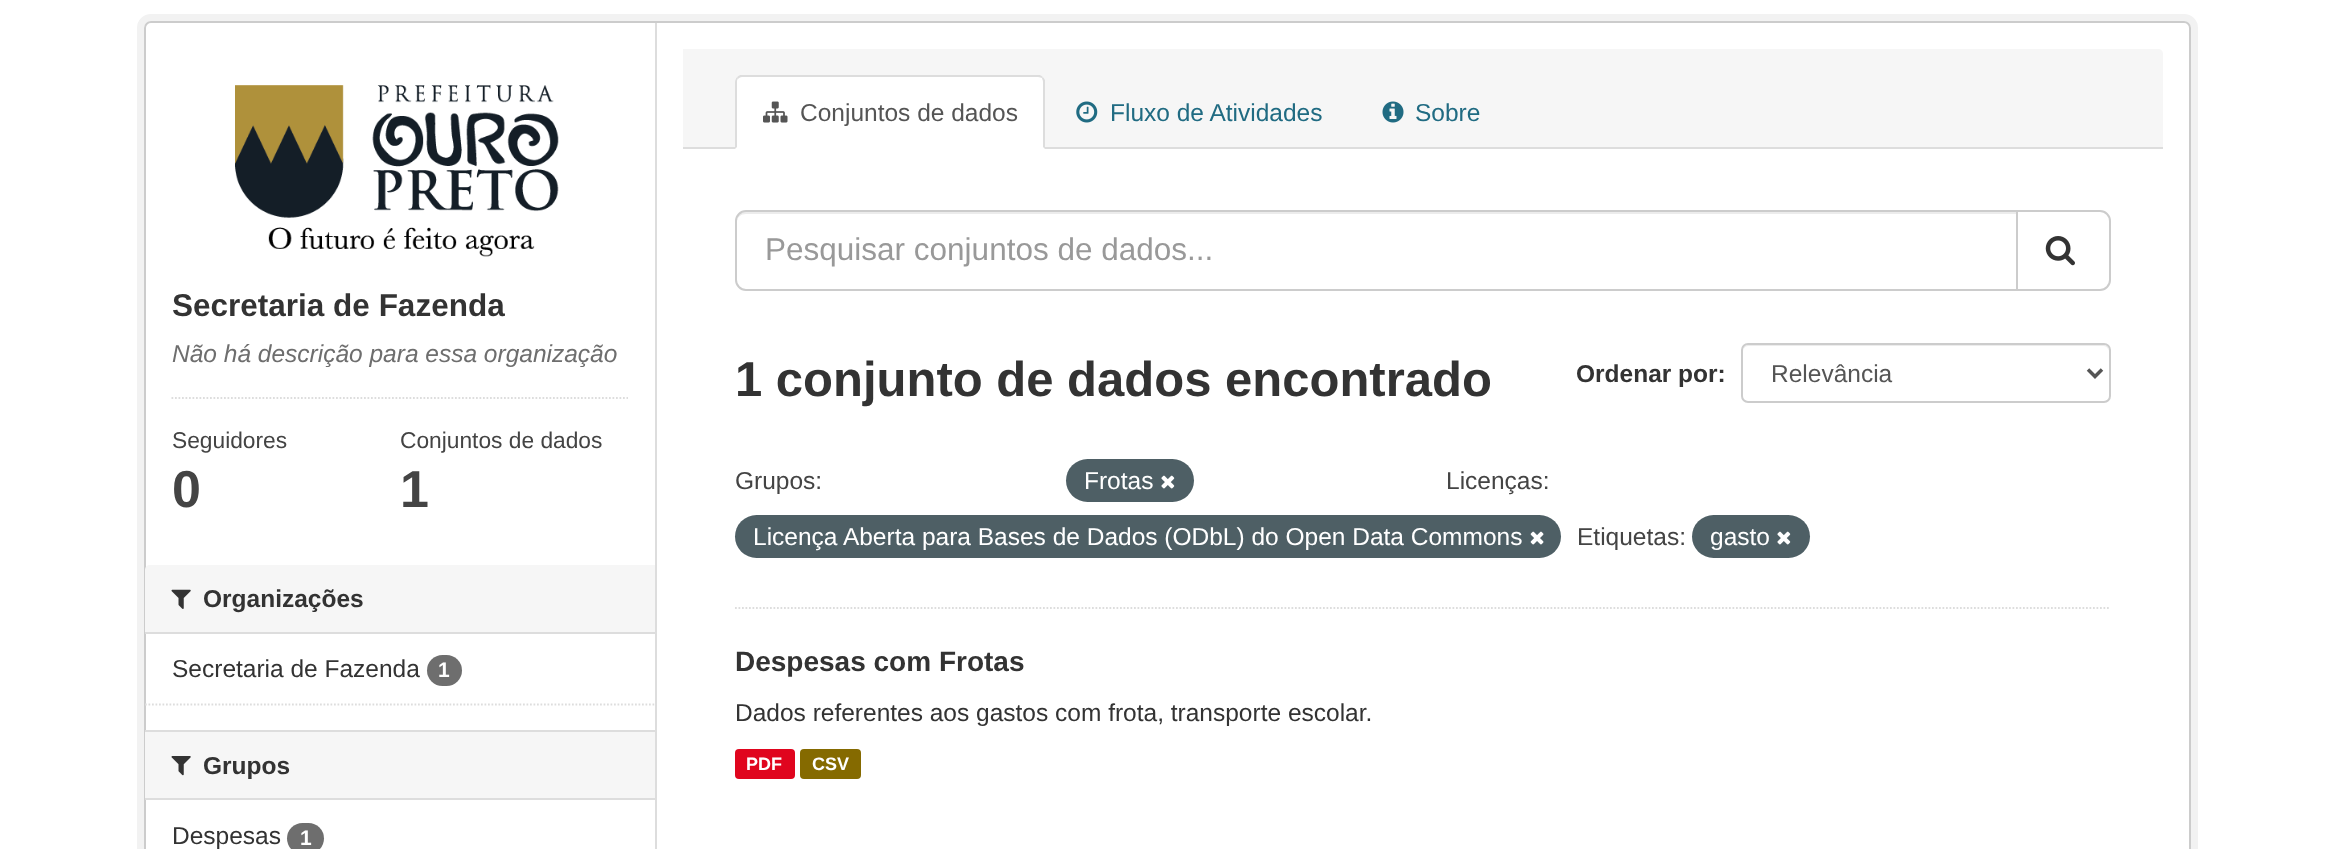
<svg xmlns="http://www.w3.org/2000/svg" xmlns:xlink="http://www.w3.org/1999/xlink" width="2333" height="849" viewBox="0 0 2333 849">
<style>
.cls-1{font:bold 31.5px Liberation Sans;fill:#333333}
.cls-2{font:italic 24.5px Liberation Sans;fill:#6e6e6e}
.cls-3{font:22.75px Liberation Sans;fill:#444444}
.cls-4{font:bold 52px Liberation Sans;fill:#444444}
.cls-5{font:bold 24.5px Liberation Sans;fill:#333333}
.cls-6{font:24.5px Liberation Sans;fill:#333333}
.cls-7{font:bold 21px Liberation Sans;fill:#ffffff}
.cls-8{font:24.5px Liberation Sans;fill:#555555}
.cls-9{font:24.5px Liberation Sans;fill:#206b82}
.cls-10{font:31.5px Liberation Sans;fill:#999999}
.cls-11{font:bold 49px Liberation Sans;fill:#333333}
.cls-12{font:24.5px Liberation Sans;fill:#444444}
.cls-13{font:24.5px Liberation Sans;fill:#ffffff}
.cls-14{font:bold 28px Liberation Sans;fill:#333333}
.cls-15{font:bold 18px Liberation Sans;fill:#ffffff}
</style>
<rect width="100%" height="100%" fill="#ffffff"/>
<rect fill="none" stroke="#f2f2f2" stroke-width="7" x="140.5" y="17.5" width="2054" height="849" rx="10.5"/>
<rect fill="#ffffff" stroke="#cccccc" stroke-width="2" x="145" y="22" width="2045" height="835" rx="6"/>
<image xlink:href="image0.png" x="235" y="85" width="324" height="172"/>
<path fill="none" stroke="#dddddd" stroke-width="1.8" stroke-dasharray="1.75 1.75" d="M171.5 398H628"/>
<path fill="#f6f6f6" d="M150 565H655V634H145V570C145 567 147 565 150 565Z"/>
<rect fill="#dddddd" x="145" y="632" width="510" height="2"/>
<image xlink:href="image1.png" x="171" y="589" width="20" height="20"/>
<rect fill="#6e6e6e" x="427" y="655" width="35" height="31" rx="15.5"/>
<path fill="none" stroke="#dddddd" stroke-width="1.8" stroke-dasharray="1.75 1.75" d="M145 704.5H654.5"/>
<rect fill="#f6f6f6" x="145" y="732" width="510" height="66"/>
<rect fill="#dddddd" x="145" y="730" width="510" height="2"/>
<rect fill="#dddddd" x="145" y="798" width="510" height="2"/>
<image xlink:href="image2.png" x="171" y="756" width="20" height="20"/>
<rect fill="#6e6e6e" x="287" y="823" width="37" height="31" rx="15.5"/>
<rect fill="#dddddd" x="655" y="23" width="2" height="826"/>
<path fill="#f6f6f6" d="M683 49H2158C2161 49 2163 51 2163 54V149H683Z"/>
<rect fill="#dddddd" x="683" y="147" width="1480" height="2"/>
<path fill="#ffffff" d="M742 75H1038C1042 75 1045 78 1045 82V149H735V82C735 78 738 75 742 75Z"/>
<path fill="#dddddd" d="M742 77C740 77 739 78 738 79L737 77L740 75H1040L1043 77L1042 78C1041 78 1040 77 1038 77Z"/>
<path fill="#dddddd" d="M1043 77L1045 80V149L1043 147V82C1043 80 1042 79 1042 78Z"/>
<path fill="#dddddd" d="M735 149L737 147V82C737 81 737 79 738 79L737 77C736 78 735 80 735 82Z"/>
<image xlink:href="image3.png" x="763" y="101" width="25" height="22"/>
<image xlink:href="image4.png" x="1076" y="101" width="22" height="22"/>
<image xlink:href="image5.png" x="1382" y="101" width="22" height="22"/>
<path fill="none" stroke="#dddddd" stroke-width="1.8" stroke-dasharray="1.75 1.75" d="M735 608H2110.5"/>
<path fill="#ececec" d="M746 214H2016V212H746C741 212 737 216 737 221V222C737 217 741 214 746 214Z"/>
<path fill="none" stroke="#cccccc" stroke-width="2" d="M746 211H2017V290H746C740.5 290 736 285.5 736 280V221C736 215.5 740.5 211 746 211Z"/>
<path fill="#ffffff" stroke="#cccccc" stroke-width="2" d="M2017 211H2100C2105.5 211 2110 215.5 2110 221V280C2110 285.5 2105.5 290 2100 290H2017Z"/>
<image xlink:href="image6.png" x="2045" y="236" width="30" height="30"/>
<path fill="#ececec" d="M1748 346H2104C2106 346 2109 349 2109 352C2109 349 2108 345 2104 345H1748C1744 345 1743 349 1743 352C1743 349 1745 346 1748 346Z"/>
<rect fill="none" stroke="#cccccc" stroke-width="2" x="1742" y="344" width="368" height="58" rx="6"/>
<path fill="none" stroke="#555555" stroke-width="3.5" d="M2088 369.5L2095 376.5L2102 369.5"/>
<rect fill="#4e5f65" x="1066" y="459" width="128" height="43" rx="21.5"/>
<image xlink:href="image7.png" x="1161" y="475" width="14" height="14"/>
<rect fill="#4e5f65" x="735" y="515" width="826" height="43" rx="21.5"/>
<image xlink:href="image8.png" x="1530" y="531" width="14" height="14"/>
<rect fill="#4e5f65" x="1692" y="515" width="118" height="43" rx="21.5"/>
<image xlink:href="image9.png" x="1777" y="531" width="14" height="14"/>
<rect fill="#e0051e" x="735" y="749" width="60" height="30" rx="4"/>
<rect fill="#856a00" x="800" y="749" width="61" height="30" rx="4"/>
<text class="cls-1" x="172" y="316">Secretaria de Fazenda</text>
<text class="cls-2" x="172" y="362">Não há descrição para essa organização</text>
<text class="cls-3" x="172" y="448">Seguidores</text>
<text class="cls-4" x="172" y="507">0</text>
<text class="cls-3" x="400" y="448">Conjuntos de dados</text>
<text class="cls-4" x="400" y="507">1</text>
<text class="cls-5" x="203" y="607">Organizações</text>
<text class="cls-6" x="172" y="677">Secretaria de Fazenda</text>
<text class="cls-7" x="438" y="677">1</text>
<text class="cls-5" x="203" y="774">Grupos</text>
<text class="cls-6" x="172" y="844">Despesas</text>
<text class="cls-7" x="300" y="845">1</text>
<text class="cls-8" x="800" y="121">Conjuntos de dados</text>
<text class="cls-9" x="1110" y="121">Fluxo de Atividades</text>
<text class="cls-9" x="1415" y="121">Sobre</text>
<text class="cls-10" x="765" y="260">Pesquisar conjuntos de dados...</text>
<text class="cls-11" x="735" y="396">1 conjunto de dados encontrado</text>
<text class="cls-5" x="1576" y="382">Ordenar por:</text>
<text class="cls-8" x="1771" y="382">Relevância</text>
<text class="cls-12" x="735" y="489">Grupos:</text>
<text class="cls-13" x="1084" y="489">Frotas</text>
<text class="cls-12" x="1446" y="489">Licenças:</text>
<text class="cls-13" x="753" y="545">Licença Aberta para Bases de Dados (ODbL) do Open Data Commons</text>
<text class="cls-12" x="1577" y="545">Etiquetas:</text>
<text class="cls-13" x="1710" y="545">gasto</text>
<text class="cls-14" x="735" y="671">Despesas com Frotas</text>
<text class="cls-6" x="735" y="721">Dados referentes aos gastos com frota, transporte escolar.</text>
<text class="cls-15" x="746" y="770">PDF</text>
<text class="cls-15" x="812" y="770">CSV</text>
</svg>
